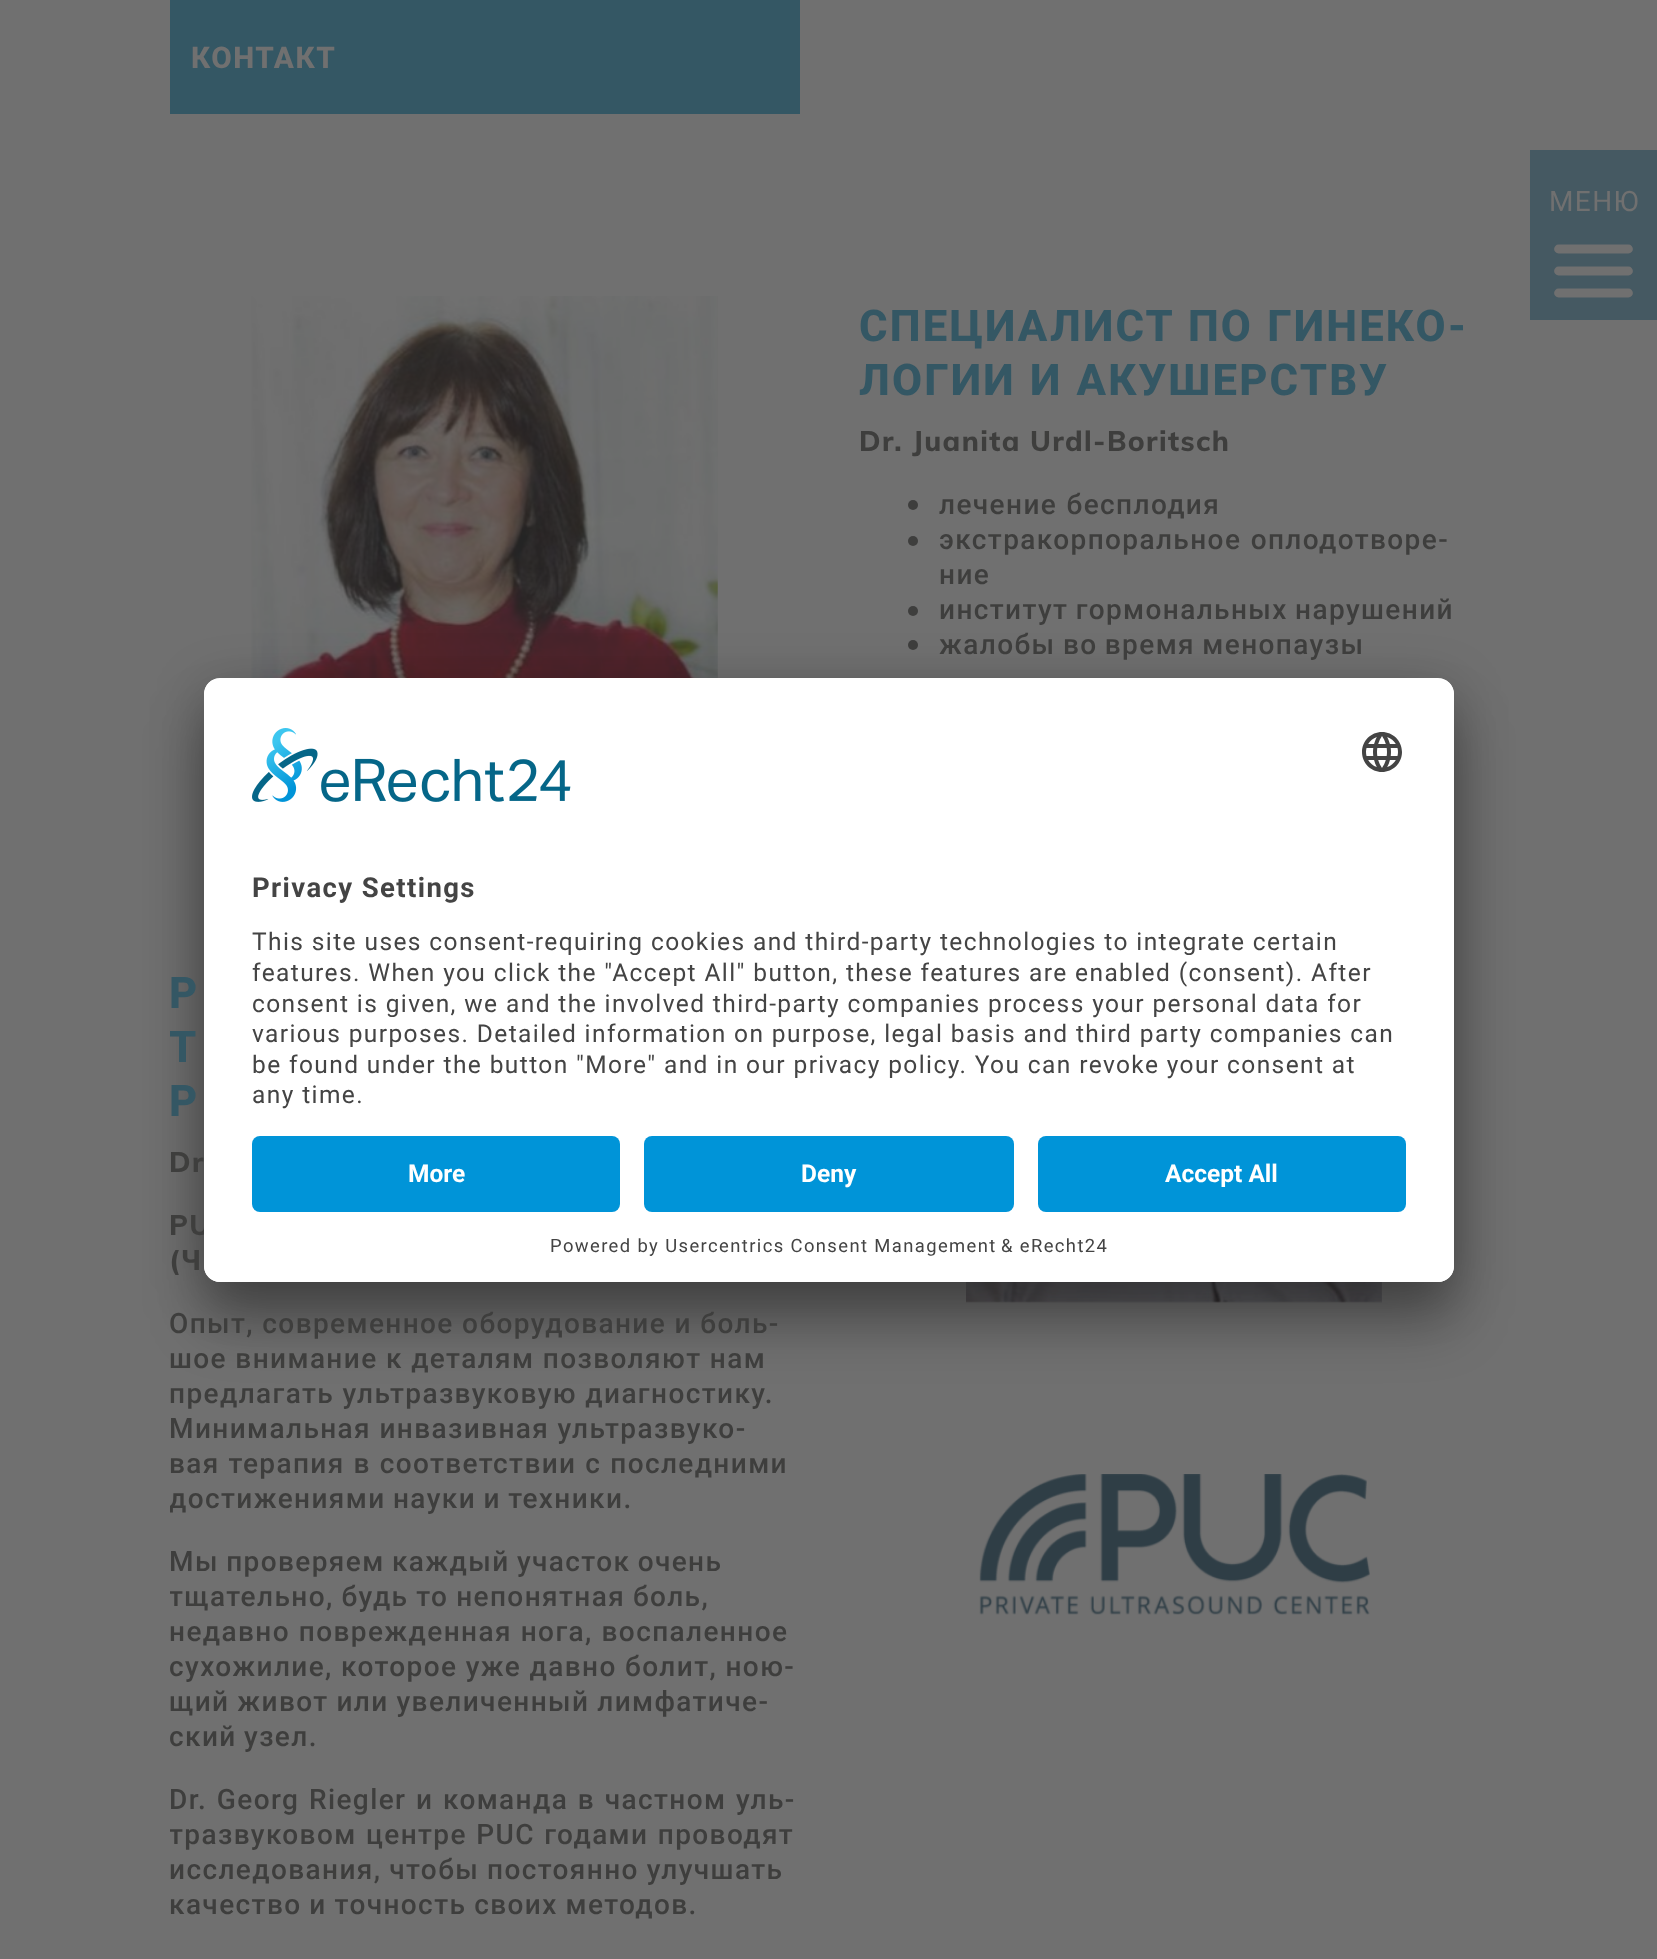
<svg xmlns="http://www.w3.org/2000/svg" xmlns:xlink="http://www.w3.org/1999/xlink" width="1657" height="1959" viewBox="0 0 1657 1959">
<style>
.cls-1{font:800 29.75px Roboto;letter-spacing:1.5px;fill:#707070}
.cls-2{font:28px Roboto;letter-spacing:1.4px;fill:#707070}
.cls-3{font:800 43.6px Roboto;letter-spacing:2.2px;fill:#345764}
.cls-4{font:800 28px Muli;letter-spacing:1.4px;fill:#3e3e3d}
.cls-5{font:500 28px Roboto;letter-spacing:1.4px;fill:#3e3e3d}
.cls-6{font:800 28px Roboto;letter-spacing:1.4px;fill:#3e3e3d}
.cls-7{font:bold 27.5px Roboto;letter-spacing:1.4px;fill:#444444}
.cls-8{font:24.5px Roboto;letter-spacing:1.4px;fill:#444444}
.cls-9{font:bold 24.5px Roboto;fill:#ffffff}
.cls-10{font:18.4px Roboto;letter-spacing:1.4px;fill:#444444}
</style>
<defs>
<clipPath id="clip1"><rect x="170" y="296" width="1320" height="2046"/></clipPath>
<clipPath id="clip2"><rect x="170" y="1146" width="630" height="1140"/></clipPath>
<clipPath id="clip3"><rect x="204" y="678" width="1250" height="604" rx="16"/></clipPath>
<clipPath id="clip4"><path d="M220 678H1438C1447 678 1454 685 1454 694V1120H204V694C204 685 211 678 220 678Z"/></clipPath>
</defs>
<rect width="100%" height="100%" fill="#707070"/>
<rect fill="#345764" x="170" y="0" width="630" height="114"/>
<rect fill="#455962" x="1530" y="150" width="127" height="170"/>
<path fill="none" stroke="#707070" stroke-width="8.8" stroke-linecap="round" d="M1558.5 249H1628.5M1558.5 271H1628.5M1558.5 293H1628.5"/>
<circle fill="#3e3e3d" cx="913" cy="505" r="5"/>
<circle fill="#3e3e3d" cx="913" cy="541" r="5"/>
<circle fill="#3e3e3d" cx="913" cy="611" r="5"/>
<circle fill="#3e3e3d" cx="913" cy="645" r="5"/>
<image xlink:href="image0.png" x="966" y="1282" width="416" height="21"/>
<image xlink:href="image1.png" x="979" y="1474" width="391" height="141"/>
<image xlink:href="image2.png" x="251" y="296" width="467" height="382"/>
<rect fill="#000000" fill-opacity="0.3" filter="blur(28px)" x="204" y="718" width="1250" height="604" rx="16"/>
<rect fill="#000000" fill-opacity="0.22" filter="blur(26px)" x="204" y="688" width="1250" height="604" rx="16"/>
<text class="cls-1" x="191" y="68">КОНТАКТ</text>
<text class="cls-2" x="1549" y="211">МЕНЮ</text>
<text class="cls-3"><tspan x="859" y="341" word-spacing="1">СПЕЦИАЛИСТ ПО ГИНЕКО-</tspan><tspan x="859" y="395" word-spacing="1">ЛОГИИ И АКУШЕРСТВУ</tspan></text>
<text class="cls-4" x="859" y="451">Dr. Juanita Urdl-Boritsch</text>
<text class="cls-5"><tspan x="939" y="514" word-spacing="1">лечение бесплодия</tspan><tspan x="939" y="549" word-spacing="1">экстракорпоральное оплодотворе-</tspan><tspan x="939" y="584">ние</tspan><tspan x="939" y="619" word-spacing="-1">институт гормональных нарушений</tspan><tspan x="939" y="654" word-spacing="-1">жалобы во время менопаузы</tspan></text>
<text class="cls-3" x="169" y="1008">Р</text>
<g clip-path="url(#clip1)">
<text class="cls-3" x="169" y="1062" word-spacing="1">Т</text>
</g>
<text class="cls-3" x="169" y="1116">Р</text>
<text class="cls-4" x="169" y="1172">Dr</text>
<text class="cls-4"><tspan x="169" y="1235">PU</tspan><tspan x="169" y="1270">(</tspan></text>
<text class="cls-6" x="181" y="1270" word-spacing="1">Ч</text>
<text class="cls-5"><tspan x="169" y="1333">Опыт, современное оборудование и боль-</tspan><tspan x="169" y="1368">шое внимание к деталям позволяют нам</tspan><tspan x="169" y="1403">предлагать ультразвуковую диагностику.</tspan><tspan x="169" y="1438">Минимальная инвазивная ультразвуко-</tspan><tspan x="169" y="1473" word-spacing="0.5">вая терапия в соответствии с последними</tspan></text>
<g clip-path="url(#clip2)">
<text class="cls-5" x="169" y="1508" word-spacing="-1">достижениями науки и техники.</text>
</g>
<text class="cls-5" x="169" y="1571" word-spacing="-1">Мы проверяем каждый участок очень</text>
<g clip-path="url(#clip2)">
<text class="cls-5" x="169" y="1606" word-spacing="-0.5">тщательно, будь то непонятная боль,</text>
</g>
<text class="cls-5"><tspan x="169" y="1641" word-spacing="0.5">недавно поврежденная нога, воспаленное</tspan><tspan x="169" y="1676">сухожилие, которое уже давно болит, ною-</tspan><tspan x="169" y="1711" word-spacing="-0.5">щий живот или увеличенный лимфатиче-</tspan><tspan x="169" y="1746" word-spacing="-1">ский узел.</tspan></text>
<text class="cls-5" x="169" y="1809" word-spacing="1.25">Dr. Georg Riegler и команда в частном уль-</text>
<g clip-path="url(#clip2)">
<text class="cls-5" x="169" y="1844" word-spacing="1">тразвуковом центре PUC годами проводят</text>
</g>
<text class="cls-5"><tspan x="169" y="1879" word-spacing="-0.5">исследования, чтобы постоянно улучшать</tspan><tspan x="169" y="1914" word-spacing="-0.5">качество и точность своих методов.</tspan></text>
<rect fill="#ffffff" x="204" y="678" width="1250" height="604" rx="16"/>
<g clip-path="url(#clip3)">
<g clip-path="url(#clip4)">
<rect fill="#ffffff" x="204" y="680" width="1250" height="440"/>
</g>
</g>
<image xlink:href="image3.png" x="252" y="728" width="319" height="74"/>
<image xlink:href="image4.png" x="1362" y="732" width="40" height="40"/>
<text class="cls-7" x="252" y="897">Privacy Settings</text>
<text class="cls-8"><tspan x="252" y="950">This site uses consent-requiring cookies and third-party technologies to integrate certain</tspan><tspan x="252" y="981">features. When you click the "Accept All" button, these features are enabled (consent). After</tspan><tspan x="252" y="1012">consent is given, we and the involved third-party companies process your personal data for</tspan><tspan x="252" y="1042">various purposes. Detailed information on purpose, legal basis and third party companies can</tspan><tspan x="252" y="1073">be found under the button "More" and in our privacy policy. You can revoke your consent at</tspan><tspan x="252" y="1103">any time.</tspan></text>
<path fill="#ffffff" d="M204 1120H1454V1266C1454 1275 1447 1282 1438 1282H220C211 1282 204 1275 204 1266Z"/>
<rect fill="#0094d8" x="252" y="1136" width="368" height="76" rx="8"/>
<text class="cls-9" x="408" y="1182">More</text>
<rect fill="#0094d8" x="644" y="1136" width="370" height="76" rx="8"/>
<text class="cls-9" x="801" y="1182">Deny</text>
<rect fill="#0094d8" x="1038" y="1136" width="368" height="76" rx="8"/>
<text class="cls-9" x="1165" y="1182">Accept All</text>
<text class="cls-10" x="550" y="1252">Powered by Usercentrics Consent Management</text>
<text class="cls-10" x="1001" y="1252">&amp; eRecht24</text>
</svg>
